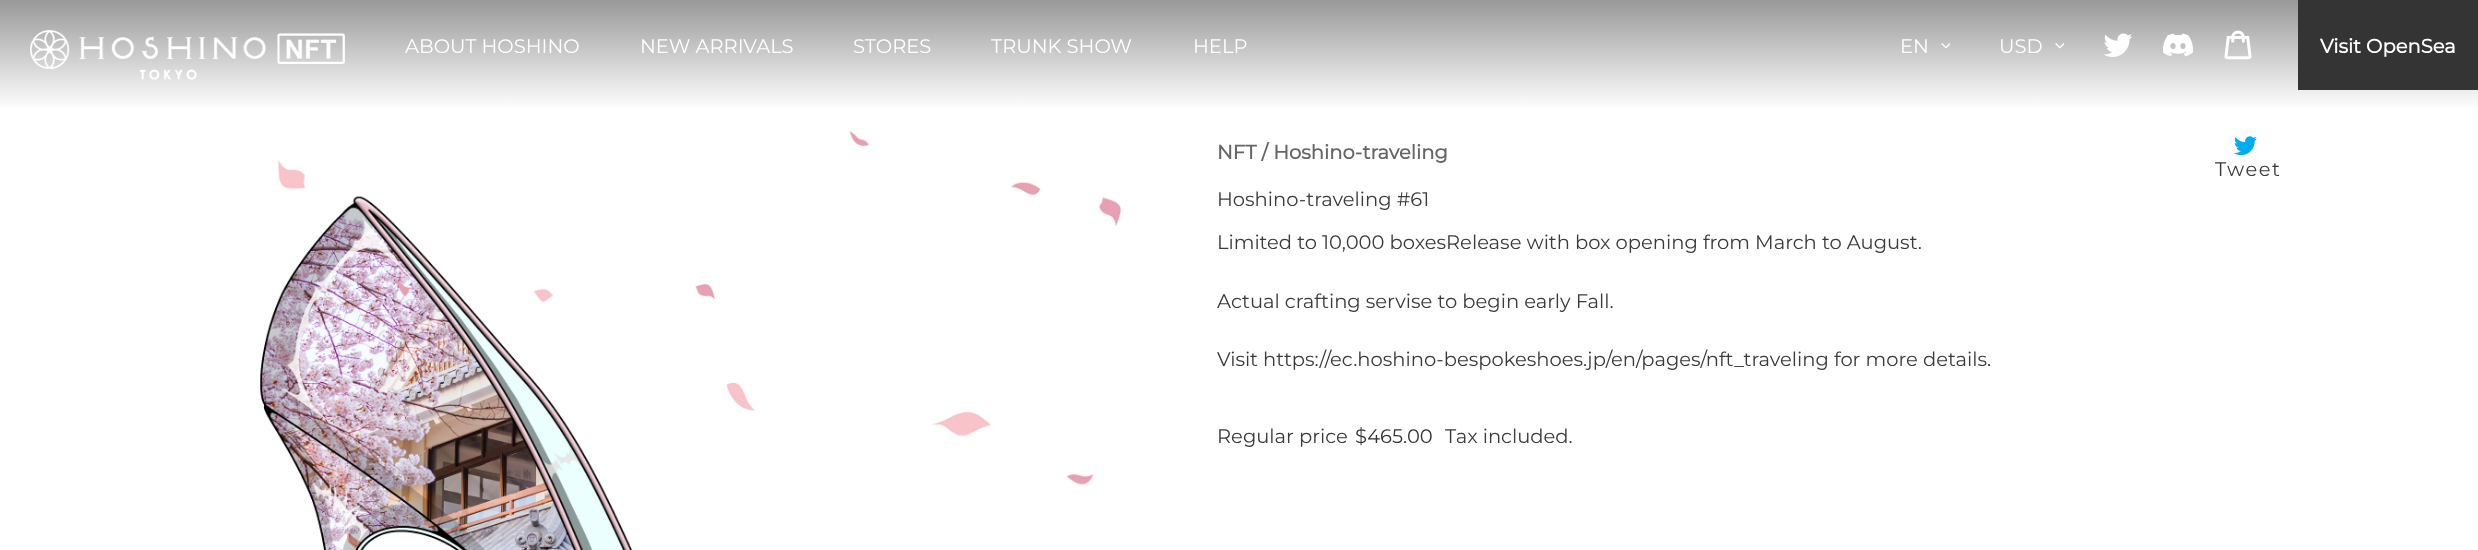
<svg xmlns="http://www.w3.org/2000/svg" xmlns:xlink="http://www.w3.org/1999/xlink" width="2478" height="550" viewBox="0 0 2478 550">
<style>
.cls-1{font:100 19.5px Montserrat;fill:#ffffff}
.cls-2{font:bold 19.5px Montserrat;fill:#ffffff}
.cls-3{font:bold 19.5px Montserrat;fill:#666666}
.cls-4{font:100 19.5px Montserrat;fill:#3a3a3a}
.cls-5{font:100 19.5px Montserrat;fill:#333232}
.cls-6{font:100 19.5px Montserrat;letter-spacing:1.5px;fill:#3a3a3a}
</style>
<defs>
<linearGradient id="g1" gradientUnits="userSpaceOnUse" x1="1239" y1="0" x2="1239" y2="110"><stop offset="0" stop-color="#999999"/><stop offset="1" stop-color="#ffffff"/></linearGradient>
</defs>
<rect width="100%" height="100%" fill="#ffffff"/>
<rect fill="url(#g1)" x="0" y="0" width="2478" height="107"/>
<image xlink:href="image0.png" x="30" y="30" width="315" height="50"/>
<image xlink:href="image1.png" x="1941" y="43" width="9" height="6"/>
<image xlink:href="image1.png" x="2055" y="43" width="9" height="6"/>
<image xlink:href="image2.png" x="2103" y="33" width="29" height="24"/>
<image xlink:href="image3.png" x="2163" y="33" width="30" height="24"/>
<image xlink:href="image4.png" x="2224" y="30" width="28" height="30"/>
<rect fill="#343434" x="2298" y="0" width="180" height="90"/>
<image xlink:href="image5.png" x="260" y="131" width="861" height="419"/>
<image xlink:href="image6.png" x="2234" y="136" width="23" height="20"/>
<text class="cls-1" x="405" y="53">ABOUT HOSHINO</text>
<text class="cls-1" x="640" y="53">NEW ARRIVALS</text>
<text class="cls-1" x="853" y="53">STORES</text>
<text class="cls-1" x="991" y="53">TRUNK SHOW</text>
<text class="cls-1" x="1193" y="53">HELP</text>
<text class="cls-1" x="1900" y="53">EN</text>
<text class="cls-1" x="1999" y="53">USD</text>
<text class="cls-2" x="2320" y="53">Visit OpenSea</text>
<text class="cls-3" x="1217" y="159">NFT / Hoshino-traveling</text>
<text class="cls-4" x="1217" y="206">Hoshino-traveling #61</text>
<text class="cls-4" x="1217" y="249">Limited to 10,000 boxesRelease with box opening from March to August.</text>
<text class="cls-4" x="1217" y="308">Actual crafting servise to begin early Fall.</text>
<text class="cls-4" x="1217" y="366">Visit https://ec.hoshino-bespokeshoes.jp/en/pages/nft_traveling for more details.</text>
<text class="cls-4" x="1217" y="443">Regular price</text>
<text class="cls-5" x="1355" y="443">$465.00</text>
<text class="cls-4" x="1445" y="443">Tax included.</text>
<text class="cls-6" x="2215" y="176">Tweet</text>
</svg>
